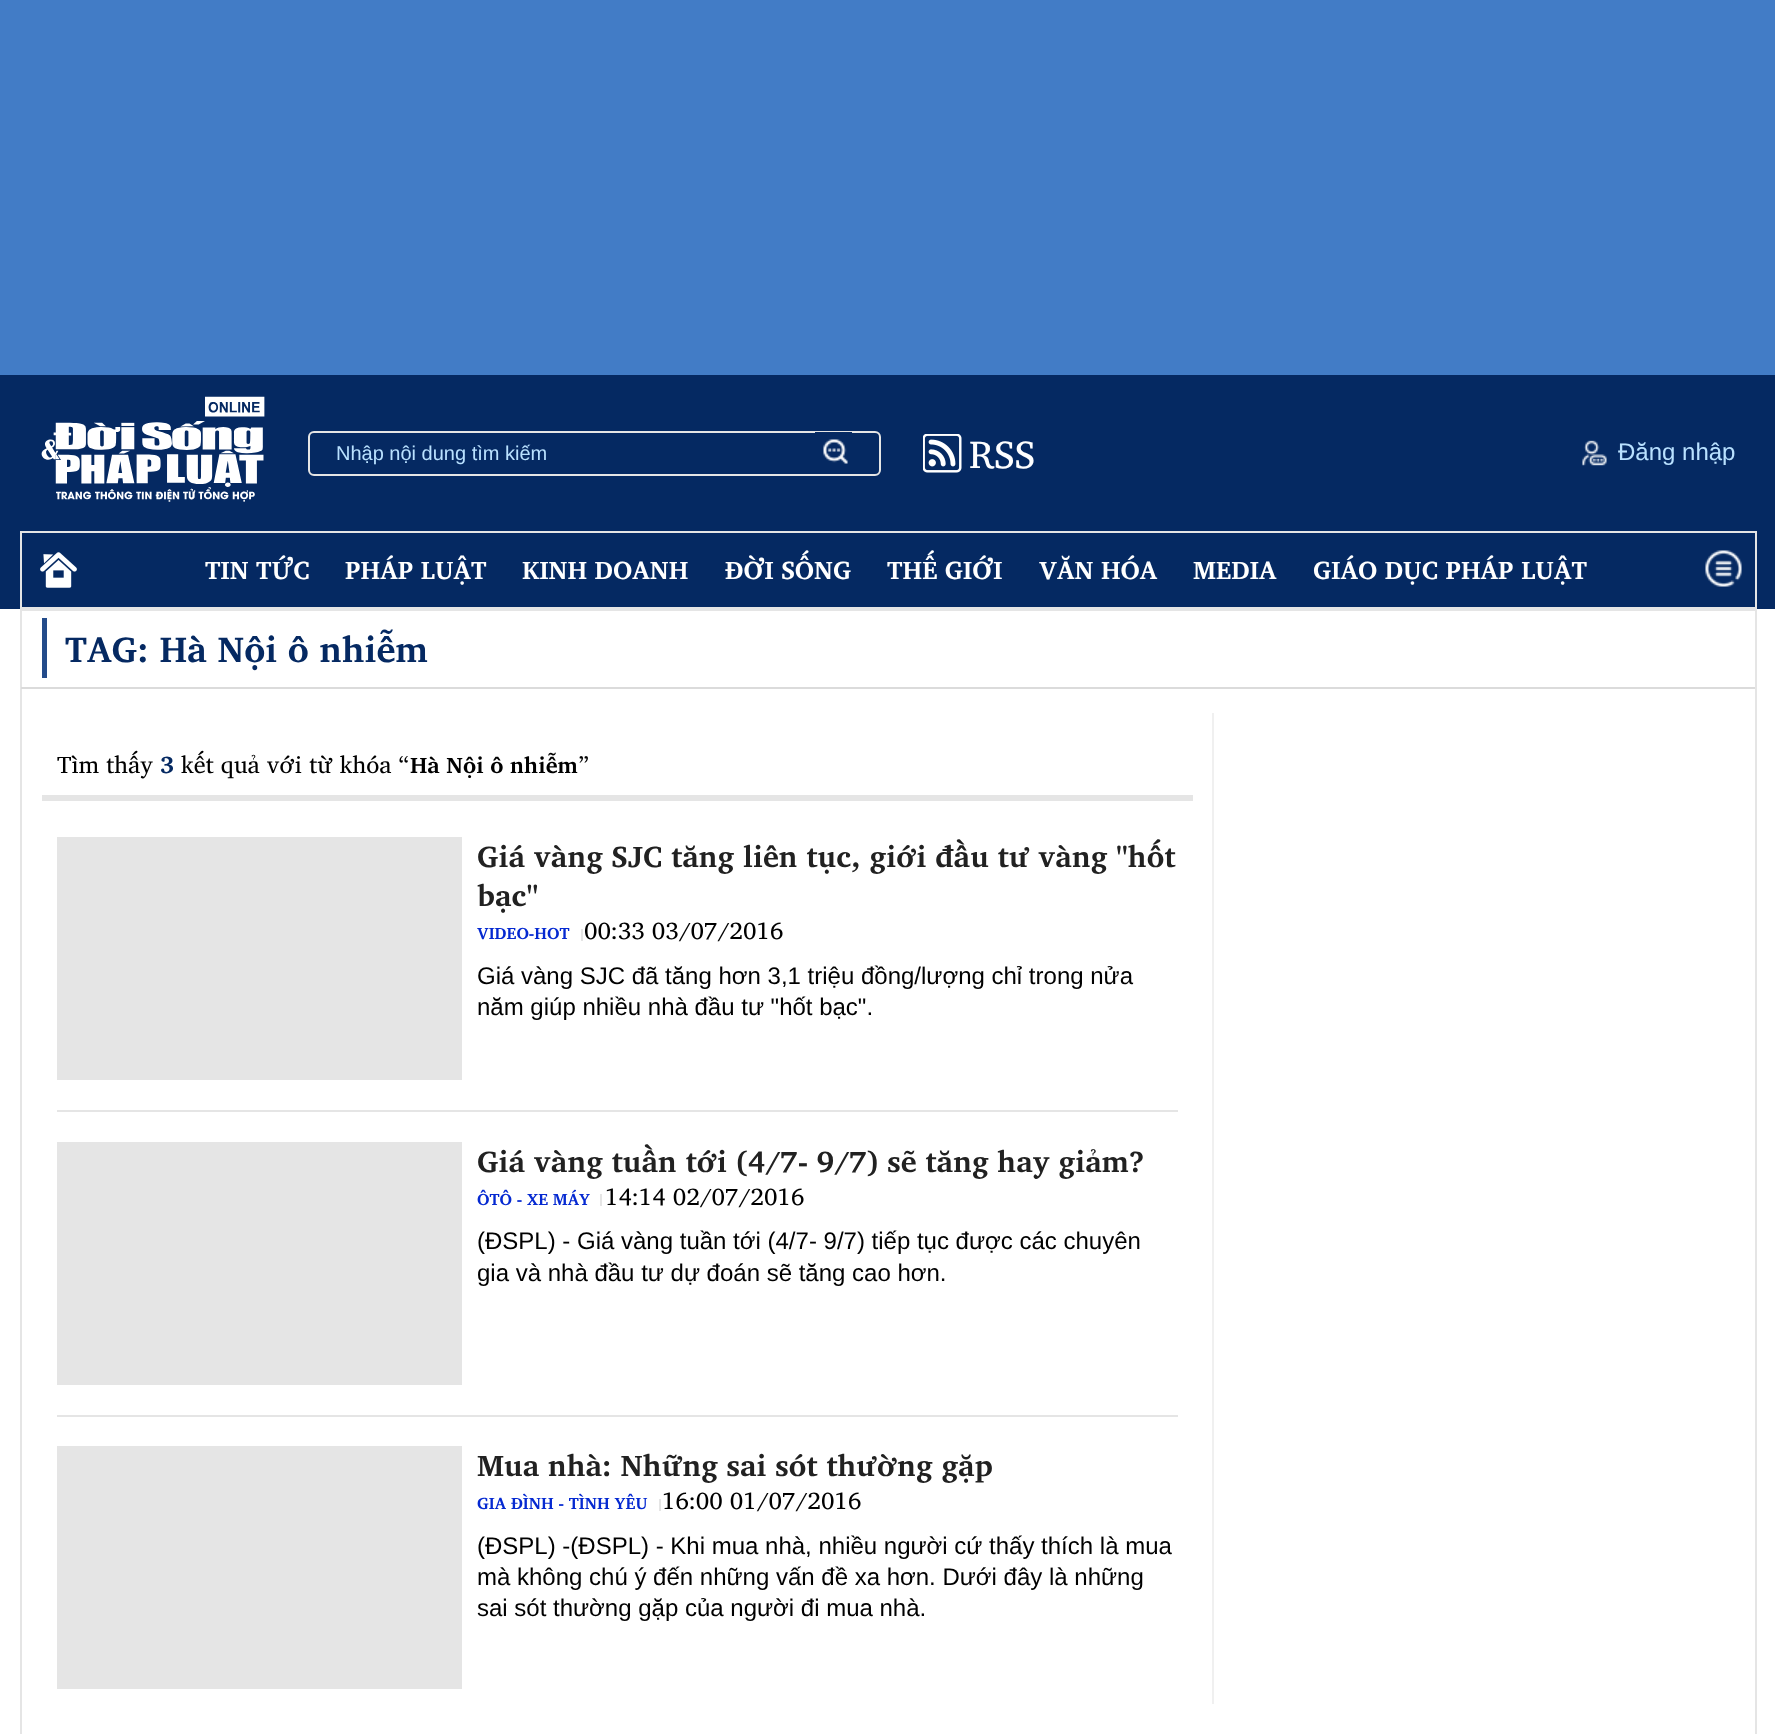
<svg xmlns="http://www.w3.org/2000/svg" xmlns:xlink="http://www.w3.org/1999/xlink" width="1775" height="1734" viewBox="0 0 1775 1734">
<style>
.cls-1{font:20px Liberation Sans;fill:#b9e1ff}
.cls-2{font:39px Charis SIL;fill:#ffffff}
.cls-3{font:24px Liberation Sans;fill:#b9e1ff}
.cls-4{font:bold 25.5px Charis SIL;fill:#ffffff}
.cls-5{font:bold 36px Charis SIL;fill:#052962}
.cls-6{font:24px Charis SIL;fill:#000000}
.cls-7{font:bold 24px Charis SIL;fill:#052962}
.cls-8{font:bold 22.5px Charis SIL;fill:#000000}
.cls-9{font:bold 30px Charis SIL;fill:#212121}
.cls-10{font:bold 16.5px Charis SIL;fill:#0529d1}
.cls-11{font:24px Liberation Sans;fill:#000000}
</style>
<rect width="100%" height="100%" fill="#ffffff"/>
<rect fill="#427cc6" x="0" y="0" width="1775" height="375"/>
<rect fill="#052962" x="0" y="375" width="1775" height="234"/>
<image xlink:href="image0.png" x="41" y="396" width="224" height="106"/>
<rect fill="none" stroke="#e5e5e5" stroke-width="2" x="309" y="432" width="571" height="43" rx="5"/>
<rect fill="#052962" x="815" y="432" width="37" height="1"/>
<image xlink:href="image1.png" x="823" y="439" width="25" height="25"/>
<image xlink:href="image2.png" x="923" y="434" width="39" height="39"/>
<image xlink:href="image3.png" x="1582" y="440" width="25" height="26"/>
<rect fill="none" stroke="#e5e5e5" stroke-width="2" x="21" y="532" width="1735" height="76"/>
<image xlink:href="image4.png" x="40" y="552" width="37" height="36"/>
<image xlink:href="image5.png" x="1705" y="550" width="37" height="37"/>
<rect fill="#e5e5e5" x="20" y="609" width="1737" height="2"/>
<rect fill="#e5e5e5" x="1755" y="609" width="2" height="1125"/>
<rect fill="#e5e5e5" x="20" y="609" width="2" height="1125"/>
<rect fill="#dbdbdb" x="21" y="687" width="1734" height="2"/>
<rect fill="#234b8a" x="42" y="618" width="5" height="60"/>
<rect fill="#f0f0f0" x="1212" y="713" width="2" height="991"/>
<rect fill="#e5e5e5" x="42" y="795" width="1151" height="6"/>
<rect fill="#e5e5e5" x="57" y="1110" width="1121" height="2"/>
<rect fill="#e5e5e5" x="57" y="837" width="405" height="243"/>
<rect fill="#e5e5e5" x="581" y="929" width="2" height="12"/>
<rect fill="#e5e5e5" x="57" y="1415" width="1121" height="2"/>
<rect fill="#e5e5e5" x="57" y="1142" width="405" height="243"/>
<rect fill="#e5e5e5" x="600" y="1194" width="2" height="12"/>
<rect fill="#e5e5e5" x="57" y="1446" width="405" height="243"/>
<rect fill="#e5e5e5" x="659" y="1499" width="2" height="12"/>
<text class="cls-1" x="336" y="460">Nhập nội dung tìm kiếm</text>
<text class="cls-2" x="969" y="468">RSS</text>
<text class="cls-3" x="1618" y="460">Đăng nhập</text>
<text class="cls-4" x="205" y="579">TIN TỨC</text>
<text class="cls-4" x="345" y="579">PHÁP LUẬT</text>
<text class="cls-4" x="522" y="579">KINH DOANH</text>
<text class="cls-4" x="725" y="579">ĐỜI SỐNG</text>
<text class="cls-4" x="887" y="579">THẾ GIỚI</text>
<text class="cls-4" x="1039" y="579">VĂN HÓA</text>
<text class="cls-4" x="1193" y="579">MEDIA</text>
<text class="cls-4" x="1313" y="579">GIÁO DỤC PHÁP LUẬT</text>
<text class="cls-5" x="65" y="662">TAG: Hà Nội ô nhiễm</text>
<text class="cls-6" x="57" y="773">Tìm thấy</text>
<text class="cls-7" x="160" y="773">3</text>
<text class="cls-6" x="181" y="773">kết quả với từ khóa “</text>
<text class="cls-8" x="410" y="773">Hà Nội ô nhiễm</text>
<text class="cls-6" x="578" y="773">”</text>
<text class="cls-9"><tspan x="477" y="867">Giá vàng SJC tăng liên tục, giới đầu tư vàng "hốt</tspan><tspan x="477" y="906">bạc"</tspan></text>
<text class="cls-10" x="477" y="939">VIDEO-HOT</text>
<text class="cls-6" x="584" y="939">00:33 03/07/2016</text>
<text class="cls-11"><tspan x="477" y="984">Giá vàng SJC đã tăng hơn 3,1 triệu đồng/lượng chỉ trong nửa</tspan><tspan x="477" y="1015">năm giúp nhiều nhà đầu tư "hốt bạc".</tspan></text>
<text class="cls-9" x="477" y="1172">Giá vàng tuần tới (4/7- 9/7) sẽ tăng hay giảm?</text>
<text class="cls-10" x="477" y="1205">ÔTÔ - XE MÁY</text>
<text class="cls-6" x="605" y="1205">14:14 02/07/2016</text>
<text class="cls-11"><tspan x="477" y="1249">(ĐSPL) - Giá vàng tuần tới (4/7- 9/7) tiếp tục được các chuyên</tspan><tspan x="477" y="1281">gia và nhà đầu tư dự đoán sẽ tăng cao hơn.</tspan></text>
<text class="cls-9" x="477" y="1476">Mua nhà: Những sai sót thường gặp</text>
<text class="cls-10" x="477" y="1509">GIA ĐÌNH - TÌNH YÊU</text>
<text class="cls-6" x="662" y="1509">16:00 01/07/2016</text>
<text class="cls-11"><tspan x="477" y="1554">(ĐSPL) -(ĐSPL) - Khi mua nhà, nhiều người cứ thấy thích là mua</tspan><tspan x="477" y="1585">mà không chú ý đến những vấn đề xa hơn. Dưới đây là những</tspan><tspan x="477" y="1616">sai sót thường gặp của người đi mua nhà.</tspan></text>
</svg>
